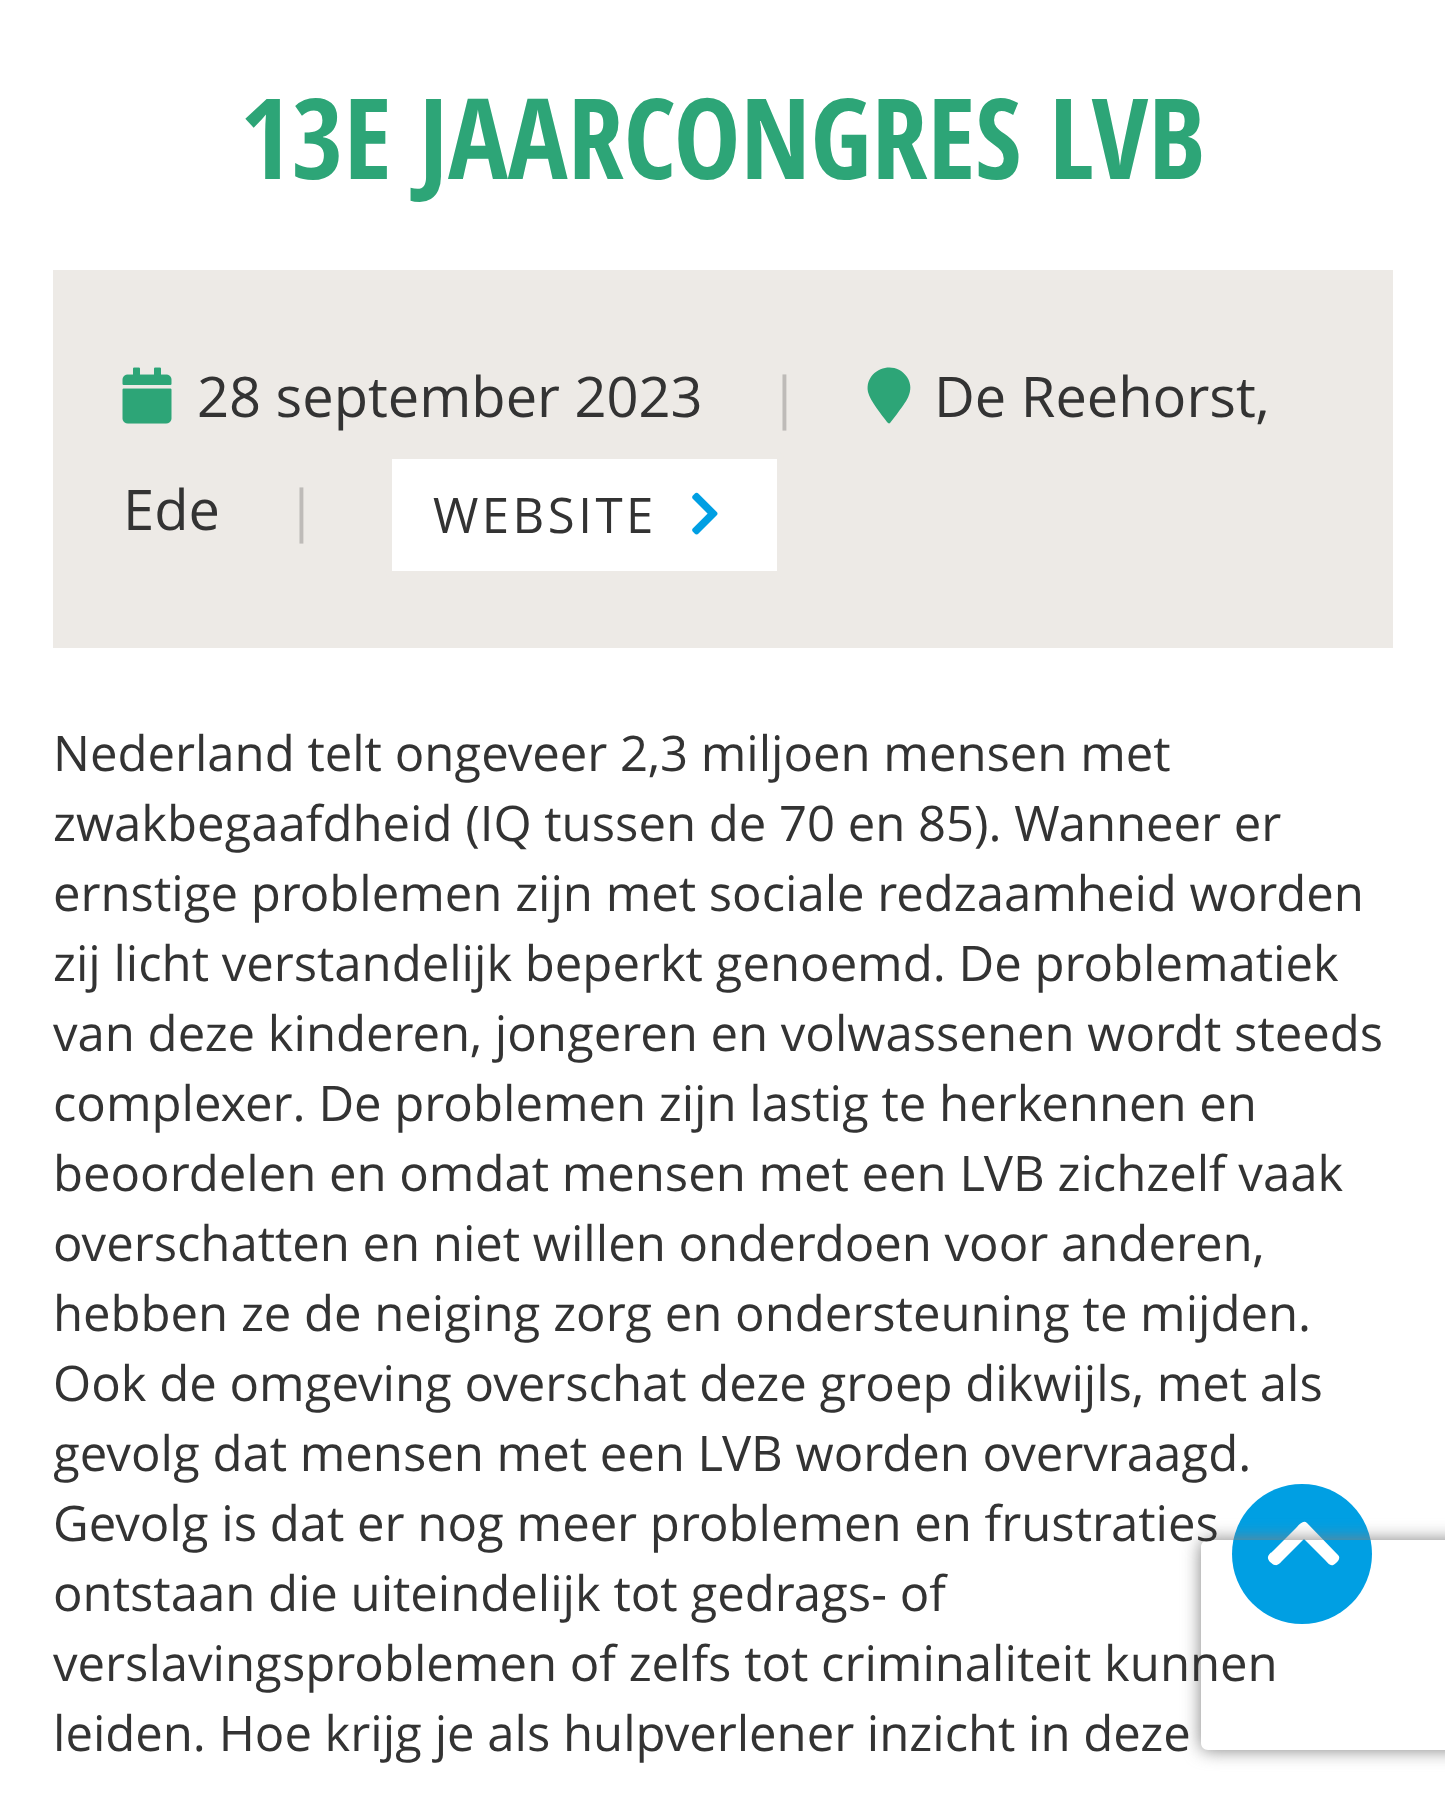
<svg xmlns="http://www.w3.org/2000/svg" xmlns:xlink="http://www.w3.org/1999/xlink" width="1445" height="1798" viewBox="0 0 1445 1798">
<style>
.cls-1{font:bold 112px Open Sans Condensed;fill:#2da577}
.cls-2{font:56px Open Sans;fill:#333333}
.cls-3{font:56px Open Sans;fill:#bebbb8}
.cls-4{font:49px Open Sans;letter-spacing:3.5px;fill:#333333}
.cls-5{font:49px Open Sans;fill:#333333}
</style>
<defs>
<clipPath id="clip1"><path d="M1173 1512H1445V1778H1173ZM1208 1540H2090C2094 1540 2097 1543 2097 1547V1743C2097 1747 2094 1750 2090 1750H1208C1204 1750 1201 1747 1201 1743V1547C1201 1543 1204 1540 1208 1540Z" clip-rule="evenodd"/></clipPath>
</defs>
<rect width="100%" height="100%" fill="#ffffff"/>
<rect fill="#edeae6" x="53" y="270" width="1340" height="378"/>
<path fill="#2da577" d="M887 422C882 415 870 401 868 392C864 370 894 358 907 377C916 391 905 403 897 414L890 423C889 424 888 423 887 422Z"/>
<image xlink:href="image0.png" x="122" y="367" width="50" height="57"/>
<rect fill="#ffffff" stroke="#edeae6" stroke-width="7" x="388.5" y="455.5" width="392" height="119" rx="3.5"/>
<image xlink:href="image1.png" x="692" y="492" width="26" height="43"/>
<circle fill="#009fe3" cx="1302" cy="1554" r="70"/>
<path fill="#ffffff" d="M1307 1523L1338 1555C1341 1558 1338 1561 1336 1563C1331 1568 1329 1564 1325 1560L1304 1539L1283 1560C1281 1562 1278 1566 1275 1565C1273 1565 1272 1563 1270 1562C1265 1556 1270 1554 1274 1550L1296 1528C1298 1526 1303 1519 1307 1523Z"/>
<g clip-path="url(#clip1)">
<rect fill="#808080" filter="blur(9px)" x="1201" y="1540" width="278" height="210" rx="7"/>
</g>
<text class="cls-1" x="240" y="179">13E JAARCONGRES LVB</text>
<text class="cls-2" x="934" y="417">De Reehorst,</text>
<text class="cls-2" x="123" y="530">Ede</text>
<text class="cls-2" x="197" y="417">28 september 2023</text>
<text class="cls-3" x="769" y="417">|</text>
<text class="cls-3" x="286" y="530">|</text>
<text class="cls-4" x="433" y="533">WEBSITE</text>
<text class="cls-5"><tspan x="53" y="771">Nederland telt ongeveer 2,3 miljoen mensen met</tspan><tspan x="53" y="841">zwakbegaafdheid (IQ tussen de 70 en 85). Wanneer er</tspan><tspan x="53" y="911">ernstige problemen zijn met sociale redzaamheid worden</tspan><tspan x="53" y="981">zij licht verstandelijk beperkt genoemd. De problematiek</tspan><tspan x="53" y="1051">van deze kinderen, jongeren en volwassenen wordt steeds</tspan><tspan x="53" y="1121">complexer. De problemen zijn lastig te herkennen en</tspan><tspan x="53" y="1191">beoordelen en omdat mensen met een LVB zichzelf vaak</tspan><tspan x="53" y="1261">overschatten en niet willen onderdoen voor anderen,</tspan><tspan x="53" y="1331">hebben ze de neiging zorg en ondersteuning te mijden.</tspan><tspan x="53" y="1401">Ook de omgeving overschat deze groep dikwijls, met als</tspan><tspan x="53" y="1471">gevolg dat mensen met een LVB worden overvraagd.</tspan><tspan x="53" y="1541">Gevolg is dat er nog meer problemen en frustraties</tspan><tspan x="53" y="1611">ontstaan die uiteindelijk tot gedrags- of</tspan><tspan x="53" y="1681">verslavingsproblemen of zelfs tot criminaliteit kunnen</tspan><tspan x="53" y="1751">leiden. Hoe krijg je als hulpverlener inzicht in deze</tspan></text>
</svg>
